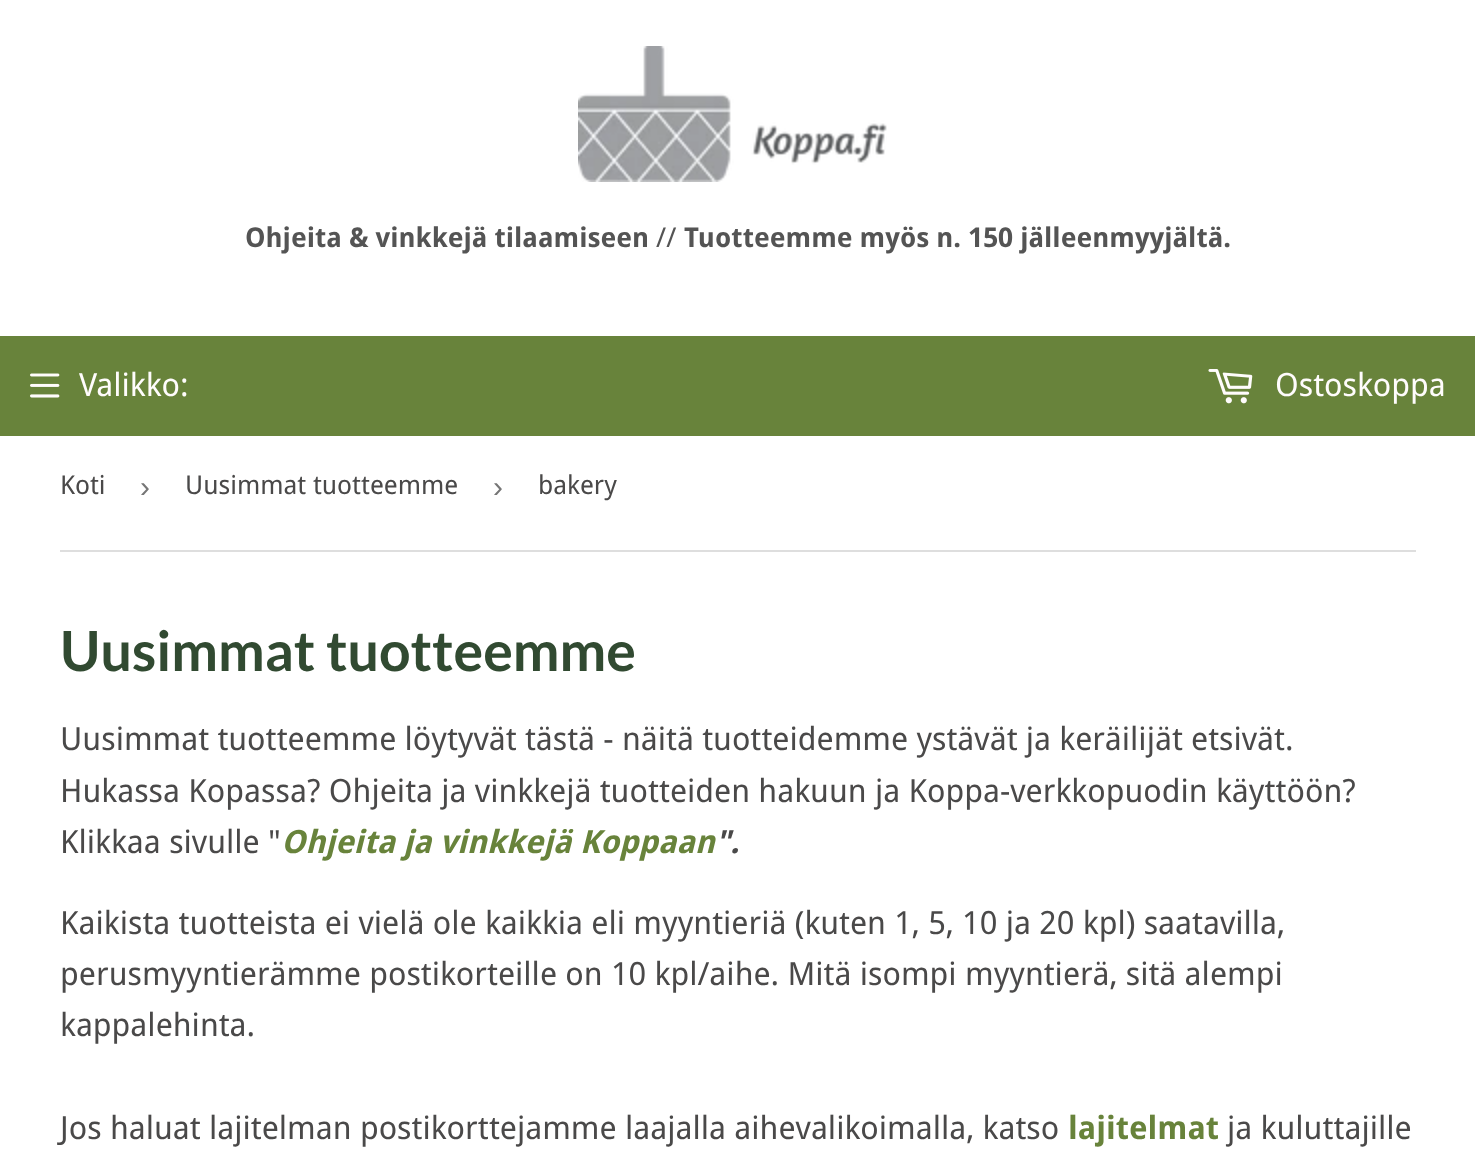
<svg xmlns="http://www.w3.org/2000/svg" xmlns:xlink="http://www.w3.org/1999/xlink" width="1475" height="1163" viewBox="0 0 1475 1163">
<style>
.cls-1{font:bold 27.2px Droid Sans;fill:#545454}
.cls-2{font:27.2px Droid Sans;fill:#545454}
.cls-3{font:32px Droid Sans;fill:#fffcfc}
.cls-4{font:26px Droid Sans;fill:#4a4949}
.cls-5{font:30px Liberation Sans;fill:#767676}
.cls-6{font:bold 55.5px Lato;fill:#314a31}
.cls-7{font:32px Droid Sans;fill:#4a4949}
.cls-8{font:italic bold 32px Droid Sans;fill:#68833b}
.cls-9{font:italic bold 32px Droid Sans;fill:#4a4949}
.cls-10{font:bold 32px Droid Sans;fill:#68833b}
</style>
<rect width="100%" height="100%" fill="#ffffff"/>
<image xlink:href="image0.png" x="578" y="46" width="309" height="136"/>
<rect fill="#68833b" x="0" y="336" width="1475" height="100"/>
<image xlink:href="image1.png" x="30" y="373" width="30" height="25"/>
<image xlink:href="image2.png" x="1208" y="369" width="45" height="35"/>
<rect fill="#dedede" x="60" y="550" width="1356" height="2"/>
<text class="cls-1" x="245" y="247">Ohjeita &amp; vinkkejä tilaamiseen</text>
<text class="cls-2" x="656" y="247">//</text>
<text class="cls-1" x="684" y="247">Tuotteemme myös n. 150 jälleenmyyjältä.</text>
<text class="cls-3" x="79" y="396">Valikko:</text>
<text class="cls-3" x="1275" y="396">Ostoskoppa</text>
<text class="cls-4" x="60" y="494">Koti</text>
<text class="cls-5" x="140" y="497">›</text>
<text class="cls-4" x="185" y="494">Uusimmat tuotteemme</text>
<text class="cls-5" x="493" y="497">›</text>
<text class="cls-4" x="538" y="494">bakery</text>
<text class="cls-6" x="60" y="671">Uusimmat tuotteemme</text>
<text class="cls-7"><tspan x="60" y="750">Uusimmat tuotteemme löytyvät tästä - näitä tuotteidemme ystävät ja keräilijät etsivät.</tspan><tspan x="60" y="802">Hukassa Kopassa? Ohjeita ja vinkkejä tuotteiden hakuun ja Koppa-verkkopuodin käyttöön?</tspan><tspan x="60" y="853">Klikkaa sivulle "</tspan></text>
<text class="cls-8" x="281" y="853">Ohjeita ja vinkkejä Koppaan</text>
<text class="cls-9" x="715" y="853">".</text>
<text class="cls-7"><tspan x="60" y="934">Kaikista tuotteista ei vielä ole kaikkia eli myyntieriä (kuten 1, 5, 10 ja 20 kpl) saatavilla,</tspan><tspan x="60" y="985">perusmyyntierämme postikorteille on 10 kpl/aihe. Mitä isompi myyntierä, sitä alempi</tspan><tspan x="60" y="1036">kappalehinta.</tspan></text>
<text class="cls-7" x="60" y="1139">Jos haluat lajitelman postikorttejamme laajalla aihevalikoimalla, katso</text>
<text class="cls-10" x="1068" y="1139">lajitelmat</text>
<text class="cls-7" x="1227" y="1139">ja kuluttajille</text>
</svg>
